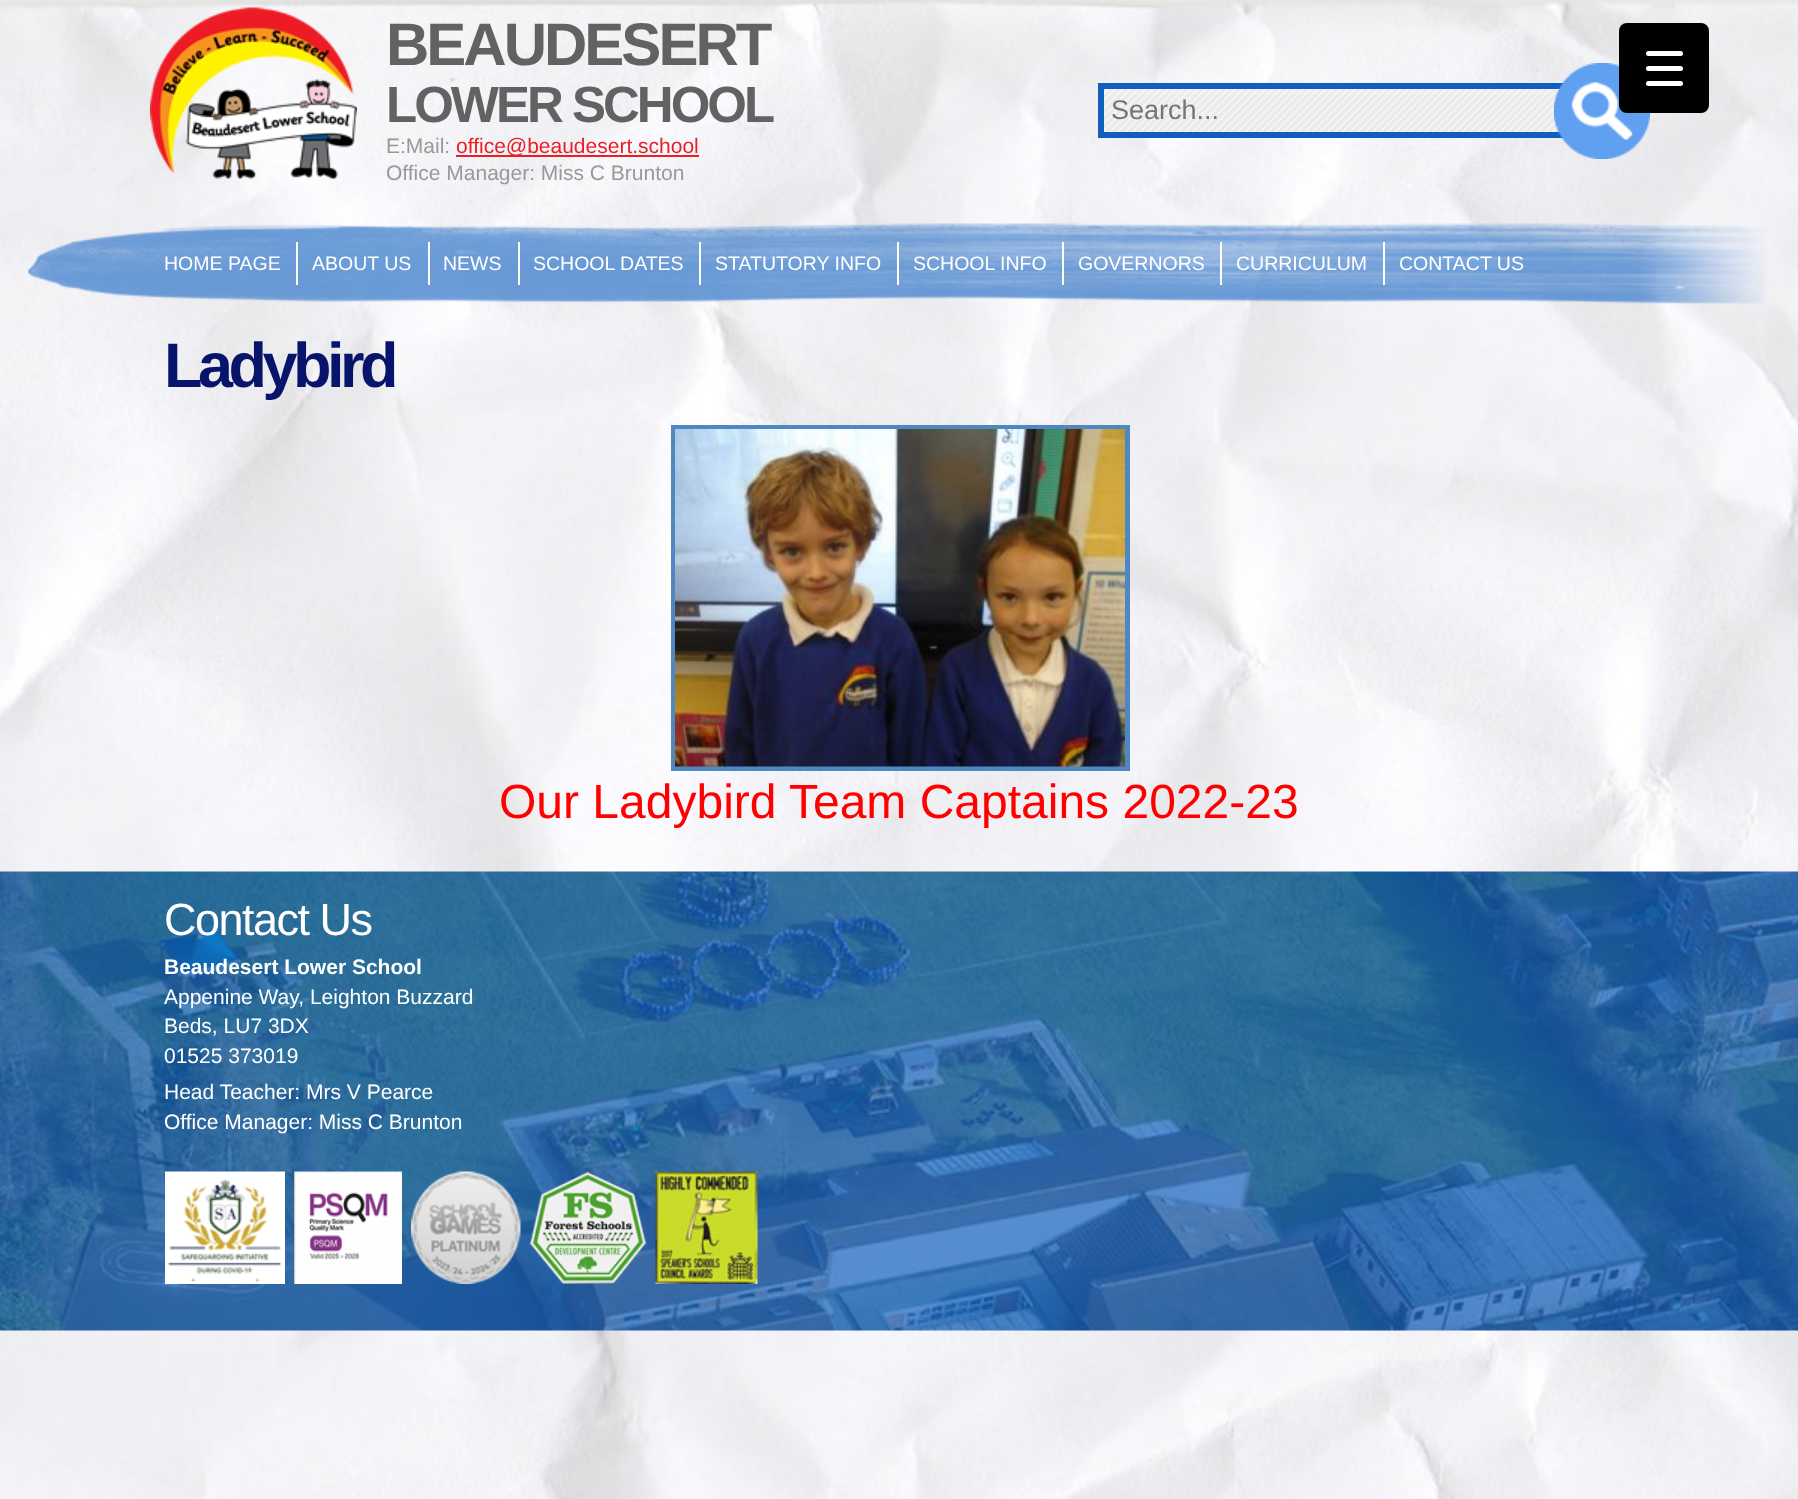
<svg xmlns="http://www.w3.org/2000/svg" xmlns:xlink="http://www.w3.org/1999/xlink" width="1798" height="1499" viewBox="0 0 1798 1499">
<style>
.cls-1{font:bold 60px Liberation Sans;letter-spacing:-3px;fill:#626262}
.cls-2{font:bold 51px Liberation Sans;letter-spacing:-3px;fill:#626262}
.cls-3{font:21px Liberation Sans;fill:#999999}
.cls-4{font:21px Liberation Sans;fill:#e91f25}
.cls-5{font:27px Liberation Sans;fill:#757575}
.cls-6{font:19.5px Liberation Sans;fill:#ffffff}
.cls-7{font:bold 63px Liberation Sans;letter-spacing:-4.5px;fill:#08146c}
.cls-8{font:48px Liberation Sans;fill:#ff0000}
.cls-9{font:45px Liberation Sans;letter-spacing:-1.5px;fill:#ffffff}
.cls-10{font:bold 21px Liberation Sans;fill:#ffffff}
.cls-11{font:21px Liberation Sans;fill:#ffffff}
</style>
<rect width="100%" height="100%" fill="#ffffff"/>
<image xlink:href="image0.png" x="0" y="0" width="1798" height="1499"/>
<image xlink:href="image1.png" x="150" y="7" width="207" height="172"/>
<rect fill="#e91f25" x="456" y="155" width="243" height="2"/>
<image xlink:href="image2.png" x="1098" y="82" width="467" height="50"/>
<rect fill="none" stroke="#105fbe" stroke-width="6" x="1101" y="86" width="471" height="49"/>
<image xlink:href="image3.png" x="1554" y="63" width="96" height="96"/>
<rect fill="#000000" x="1619" y="23" width="90" height="90" rx="8"/>
<rect fill="#ffffff" x="1646" y="66" width="37" height="5" rx="2.5"/>
<rect fill="#ffffff" x="1646" y="51" width="37" height="5" rx="2.5"/>
<rect fill="#ffffff" x="1646" y="81" width="37" height="5" rx="2.5"/>
<image xlink:href="image4.png" x="28" y="223" width="1739" height="81"/>
<rect fill="#ffffff" x="296" y="242" width="2" height="43"/>
<rect fill="#ffffff" x="428" y="242" width="2" height="43"/>
<rect fill="#ffffff" x="518" y="242" width="2" height="43"/>
<rect fill="#ffffff" x="699" y="242" width="2" height="43"/>
<rect fill="#ffffff" x="897" y="242" width="2" height="43"/>
<rect fill="#ffffff" x="1062" y="242" width="2" height="43"/>
<rect fill="#ffffff" x="1220" y="242" width="2" height="43"/>
<rect fill="#ffffff" x="1383" y="242" width="2" height="43"/>
<rect fill="none" stroke="#4e87c2" stroke-width="5" x="673.5" y="427.5" width="454" height="341"/>
<image xlink:href="image5.png" x="675" y="429" width="450" height="338"/>
<image xlink:href="image6.png" x="0" y="871" width="1798" height="460"/>
<image xlink:href="image7.png" x="165" y="1171" width="120" height="113"/>
<image xlink:href="image8.png" x="294" y="1171" width="108" height="113"/>
<image xlink:href="image9.png" x="411" y="1171" width="110" height="113"/>
<image xlink:href="image10.png" x="529" y="1171" width="118" height="113"/>
<image xlink:href="image11.png" x="655" y="1171" width="103" height="113"/>
<text class="cls-1" x="386" y="65">BEAUDESERT</text>
<text class="cls-2" x="386" y="122">LOWER SCHOOL</text>
<text class="cls-3" x="386" y="153">E:Mail:</text>
<text class="cls-4" x="456" y="153">office@beaudesert.school</text>
<text class="cls-3" x="386" y="180">Office Manager: Miss C Brunton</text>
<text class="cls-5" x="1111" y="119">Search...</text>
<text class="cls-6" x="164" y="270">HOME PAGE</text>
<text class="cls-6" x="312" y="270">ABOUT US</text>
<text class="cls-6" x="443" y="270">NEWS</text>
<text class="cls-6" x="533" y="270">SCHOOL DATES</text>
<text class="cls-6" x="715" y="270">STATUTORY INFO</text>
<text class="cls-6" x="913" y="270">SCHOOL INFO</text>
<text class="cls-6" x="1078" y="270">GOVERNORS</text>
<text class="cls-6" x="1236" y="270">CURRICULUM</text>
<text class="cls-6" x="1399" y="270">CONTACT US</text>
<text class="cls-7" x="164" y="387">Ladybird</text>
<text class="cls-8" x="499" y="818">Our Ladybird Team Captains 2022-23</text>
<text class="cls-9" x="164" y="935">Contact Us</text>
<text class="cls-10" x="164" y="974">Beaudesert Lower School</text>
<text class="cls-11"><tspan x="164" y="1004">Appenine Way, Leighton Buzzard</tspan><tspan x="164" y="1033">Beds, LU7 3DX</tspan><tspan x="164" y="1063">01525 373019</tspan><tspan x="164" y="1099">Head Teacher: Mrs V Pearce</tspan><tspan x="164" y="1129">Office Manager: Miss C Brunton</tspan></text>
</svg>
